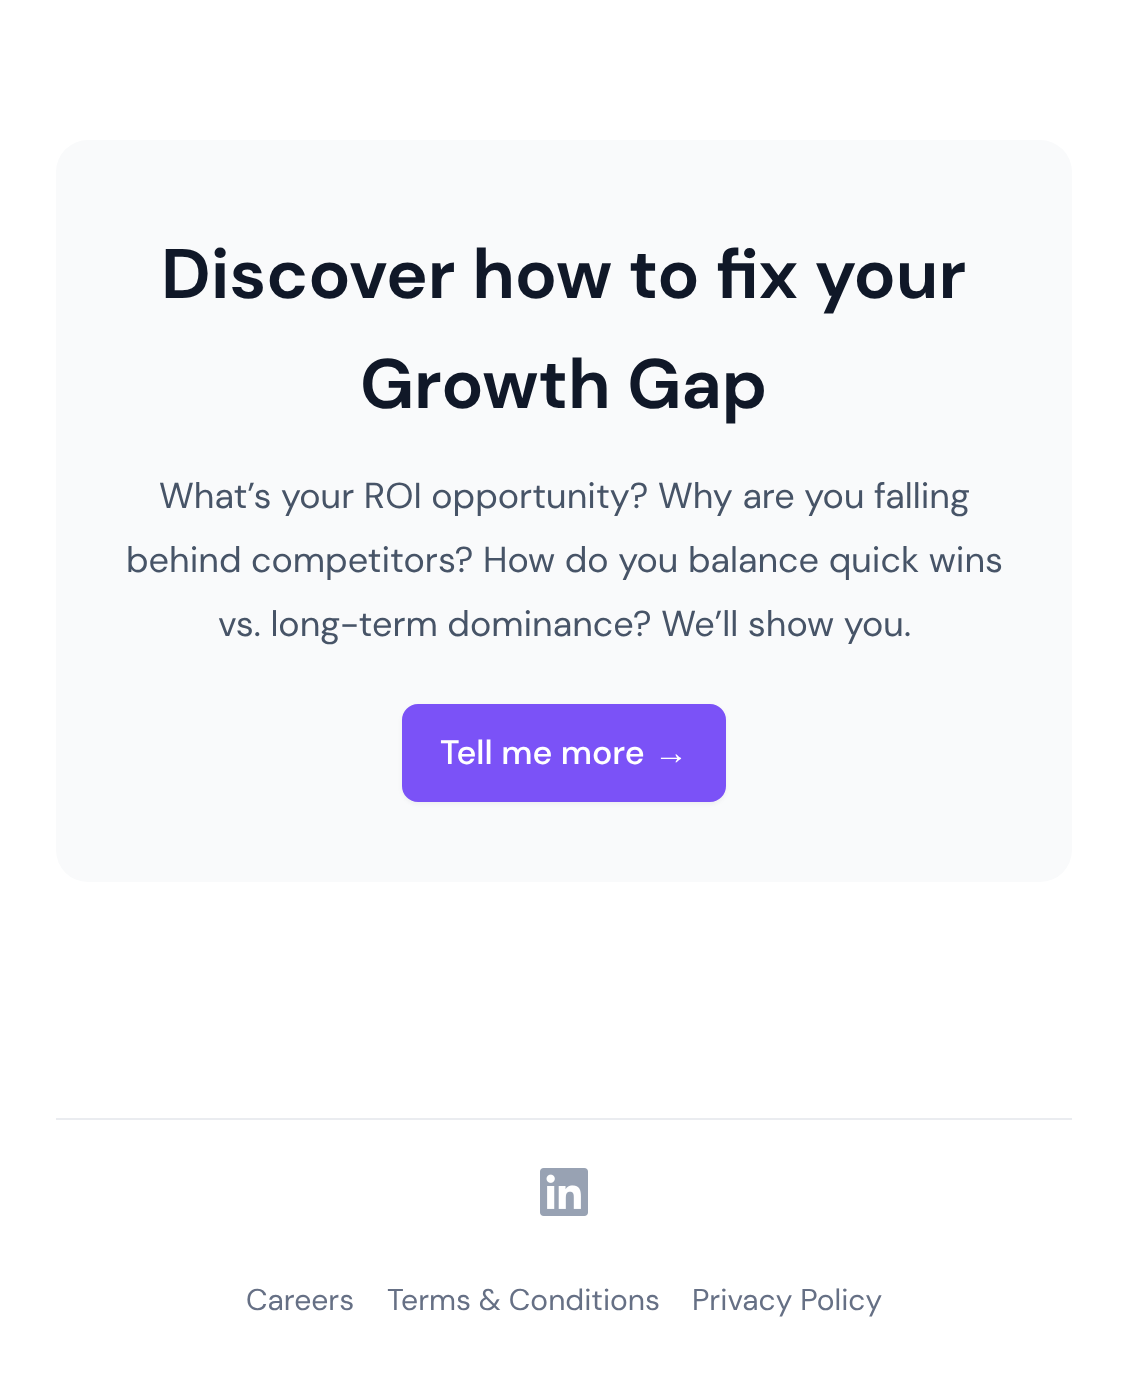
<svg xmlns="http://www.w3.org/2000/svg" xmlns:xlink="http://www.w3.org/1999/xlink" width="1128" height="1376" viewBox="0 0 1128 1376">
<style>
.cls-1{font:bold 70px DM Sans;fill:#101828}
.cls-2{font:36px DM Sans;fill:#475467}
.cls-3{font:500 34px DM Sans;fill:#ffffff}
.cls-4{font:34px Liberation Sans;fill:#ffffff}
.cls-5{font:30px DM Sans;fill:#667085}
</style>
<rect width="100%" height="100%" fill="#ffffff"/>
<rect fill="#f9fafb" x="56" y="140" width="1016" height="742" rx="32"/>
<rect fill="#101828" fill-opacity="0.05" filter="blur(2px)" x="402" y="706" width="324" height="98" rx="16"/>
<rect fill="#7b52f7" stroke="#7b52f7" stroke-width="2" x="403" y="705" width="322" height="96" rx="15"/>
<rect fill="#eaecf0" x="56" y="1118" width="1016" height="2"/>
<image xlink:href="image0.png" x="540" y="1168" width="48" height="48"/>
<text class="cls-1" x="161" y="298">Discover how to fix your</text>
<text class="cls-1" x="360" y="408">Growth Gap</text>
<text class="cls-2" x="159" y="508">What’s your ROI opportunity? Why are you falling</text>
<text class="cls-2" x="126" y="572">behind competitors? How do you balance quick wins</text>
<text class="cls-2" x="218" y="636">vs. long-term dominance? We’ll show you.</text>
<text class="cls-3" x="440" y="764">Tell me more</text>
<text class="cls-4" x="654" y="764">→</text>
<text class="cls-5" x="246" y="1310">Careers</text>
<text class="cls-5" x="387" y="1310">Terms &amp; Conditions</text>
<text class="cls-5" x="692" y="1310">Privacy Policy</text>
</svg>
